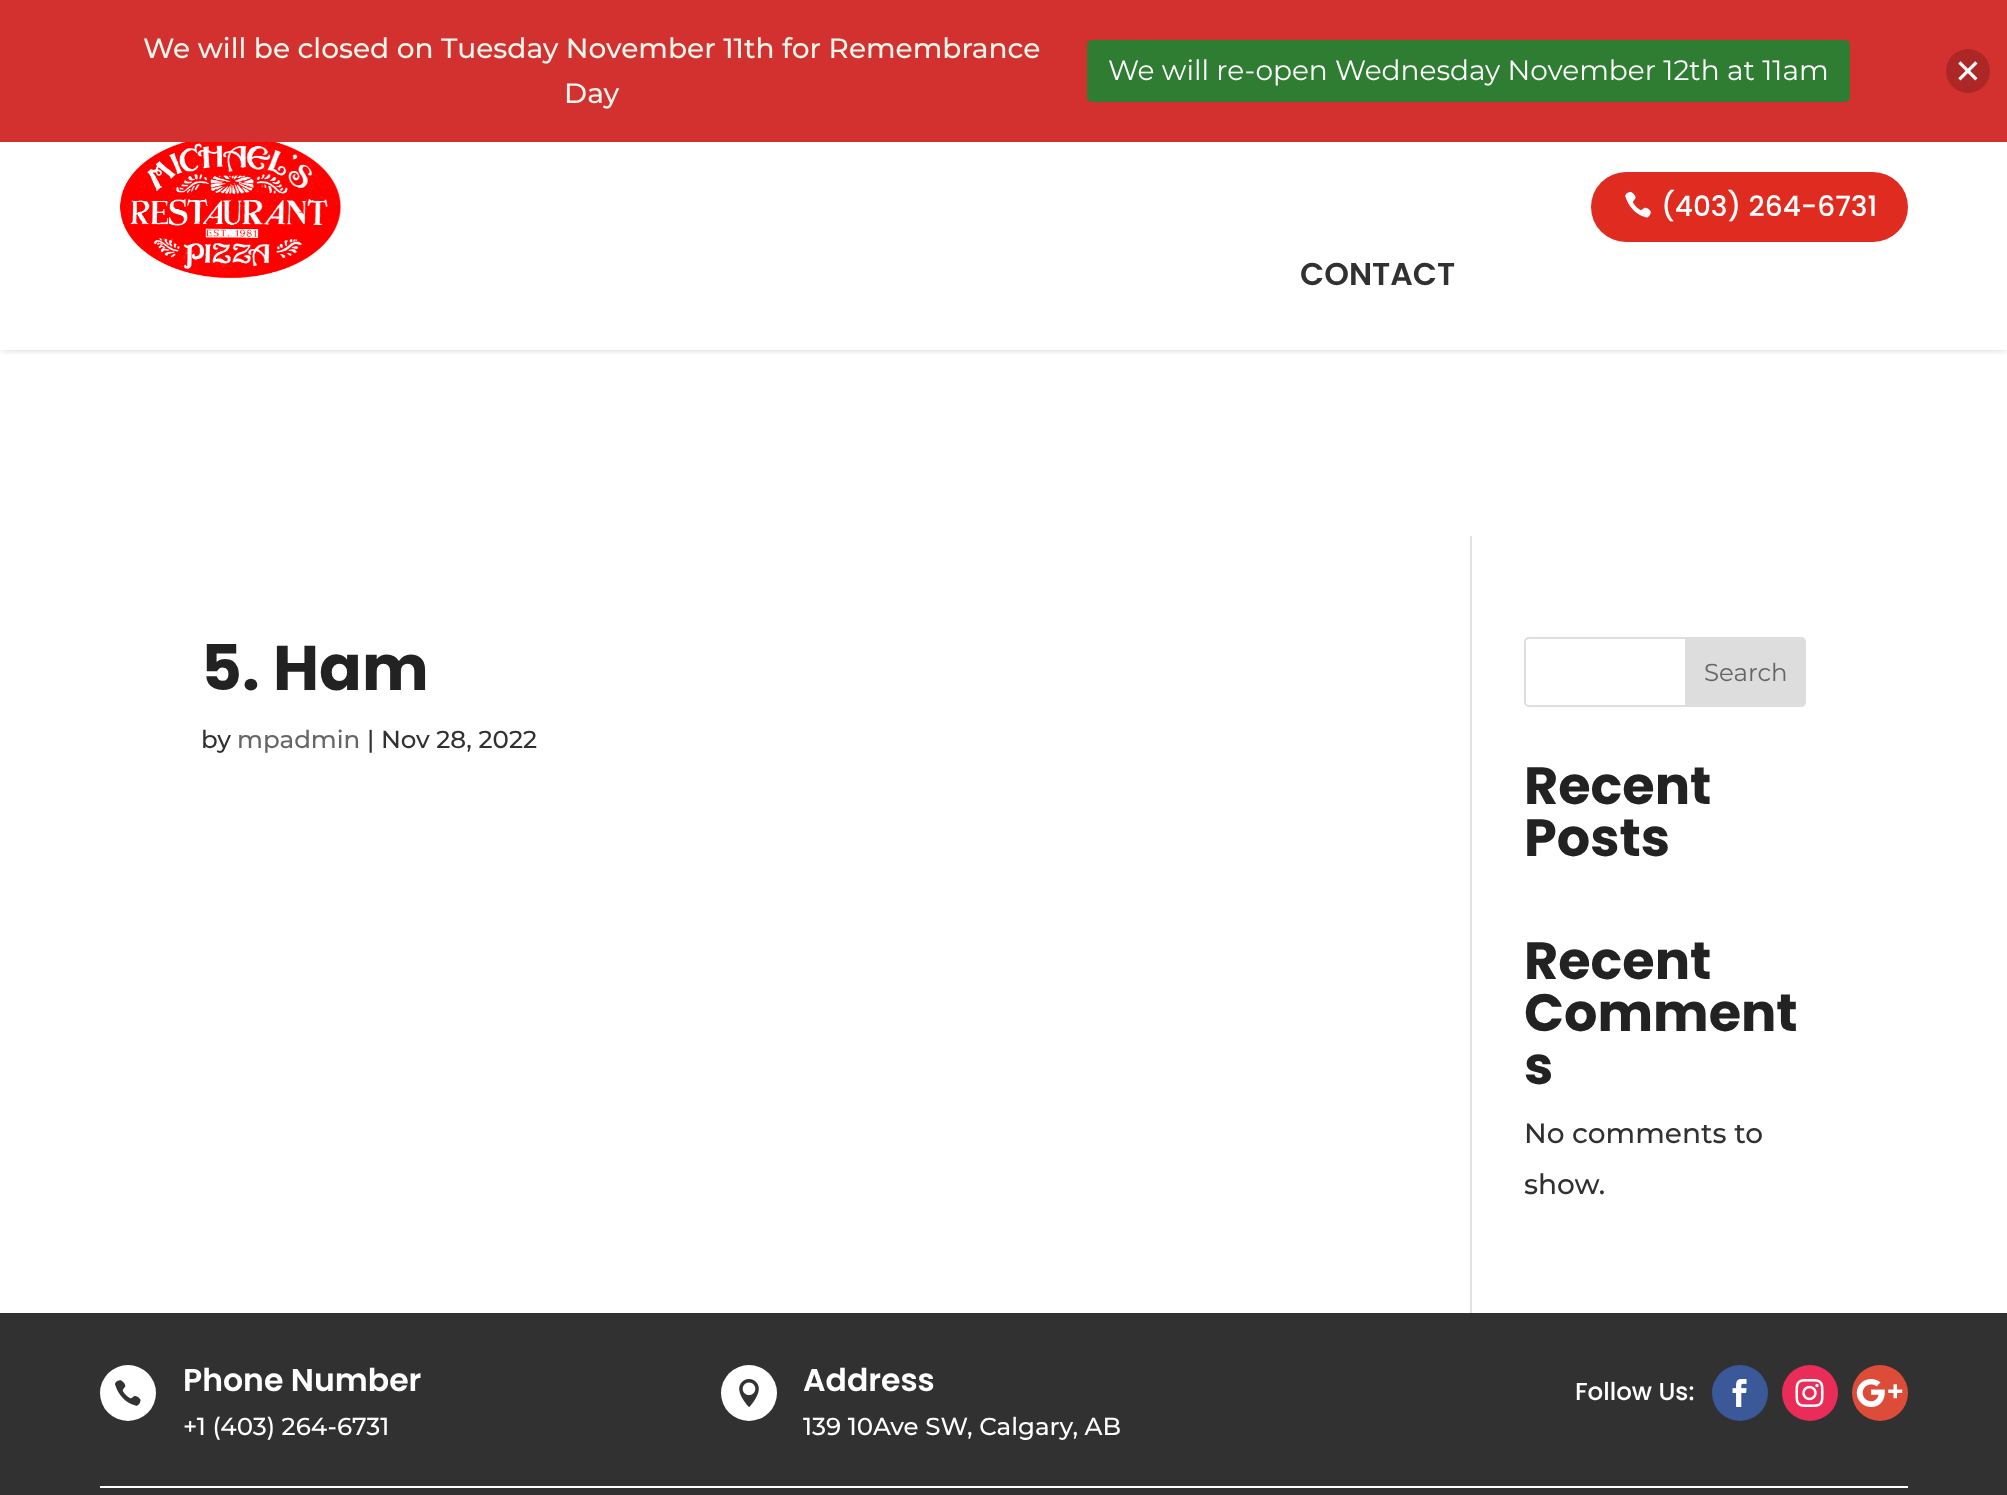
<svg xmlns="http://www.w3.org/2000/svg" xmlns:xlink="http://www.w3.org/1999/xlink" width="2007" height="1495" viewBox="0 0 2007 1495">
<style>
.cls-1{font:500 28px Montserrat;fill:#e8f5e9}
.cls-2{font:28px Montserrat;fill:#ffffff}
.cls-3{font:500 28px Poppins;fill:#ffffff}
.cls-4{font:600 31.5px Poppins;fill:#313131}
.cls-5{font:bold 63px Poppins;fill:#222222}
.cls-6{font:500 24.5px Montserrat;fill:#313131}
.cls-7{font:500 24.5px Montserrat;fill:#666666}
.cls-8{font:24.5px Montserrat;fill:#666666}
.cls-9{font:bold 52.5px Poppins;fill:#222222}
.cls-10{font:500 28px Montserrat;fill:#313131}
.cls-11{font:600 31.5px Poppins;fill:#ffffff}
.cls-12{font:500 24.5px Montserrat;fill:#ffffff}
.cls-13{font:500 24.5px Poppins;fill:#ffffff}
</style>
<defs>
<clipPath id="clip1"><rect x="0" y="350" width="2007" height="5"/></clipPath>
</defs>
<rect width="100%" height="100%" fill="#ffffff"/>
<g clip-path="url(#clip1)">
<rect fill="#000000" fill-opacity="0.3" filter="blur(4.5px)" x="2" y="2" width="2004" height="346"/>
</g>
<rect fill="#d33030" x="0" y="0" width="2007" height="142"/>
<rect fill="#2e7d32" x="1087" y="40" width="763" height="62" rx="5"/>
<circle fill="#ad2727" cx="1968" cy="71" r="22"/>
<image xlink:href="image0.png" x="1958" y="61" width="20" height="20"/>
<rect fill="#e02b20" x="1591" y="172" width="317" height="70" rx="35"/>
<image xlink:href="image1.png" x="1625" y="191" width="26" height="27"/>
<image xlink:href="image2.png" x="120" y="142" width="221" height="137"/>
<rect fill="#e2e2e2" x="1470" y="536" width="2" height="777"/>
<rect fill="none" stroke="#dddddd" stroke-width="2" x="1525" y="638" width="280" height="68" rx="4"/>
<path fill="#dddddd" stroke="#dddddd" stroke-width="2" d="M1686 638H1801C1803 638 1805 640 1805 642V702C1805 704 1803 706 1801 706H1686Z"/>
<rect fill="#313131" x="0" y="1313" width="2007" height="182"/>
<circle fill="#ffffff" cx="128" cy="1393" r="28"/>
<image xlink:href="image3.png" x="114" y="1380" width="27" height="26"/>
<circle fill="#ffffff" cx="749" cy="1393" r="28"/>
<image xlink:href="image4.png" x="739" y="1379" width="20" height="28"/>
<circle fill="#3b5998" cx="1740" cy="1393" r="28"/>
<image xlink:href="image5.png" x="1732" y="1379" width="15" height="28"/>
<circle fill="#ea2c59" cx="1810" cy="1393" r="28"/>
<image xlink:href="image6.png" x="1795" y="1379" width="29" height="28"/>
<circle fill="#dd4b39" cx="1880" cy="1393" r="28"/>
<image xlink:href="image7.png" x="1856" y="1379" width="47" height="28"/>
<rect fill="#ffffff" x="100" y="1486" width="1808" height="2"/>
<text class="cls-1" x="143" y="58">We will be closed on Tuesday November 11th for Remembrance</text>
<text class="cls-1" x="564" y="103">Day</text>
<text class="cls-2" x="1108" y="80">We will re-open Wednesday November 12th at 11am</text>
<text class="cls-3" x="1661" y="216">(403) 264-6731</text>
<text class="cls-4" x="1300" y="285">CONTACT</text>
<text class="cls-5" x="201" y="690">5. Ham</text>
<text class="cls-6" x="201" y="748">by</text>
<text class="cls-7" x="237" y="748">mpadmin</text>
<text class="cls-6" x="367" y="748">| Nov 28, 2022</text>
<text class="cls-8" x="1704" y="681">Search</text>
<text class="cls-9"><tspan x="1524" y="804">Recent</tspan><tspan x="1524" y="856">Posts</tspan></text>
<text class="cls-9"><tspan x="1524" y="979">Recent</tspan><tspan x="1524" y="1031">Comment</tspan><tspan x="1524" y="1084">s</tspan></text>
<text class="cls-10"><tspan x="1524" y="1143">No comments to</tspan><tspan x="1524" y="1194">show.</tspan></text>
<text class="cls-11" x="183" y="1391">Phone Number</text>
<text class="cls-12" x="183" y="1435">+1 (403) 264-6731</text>
<text class="cls-11" x="803" y="1391">Address</text>
<text class="cls-12" x="803" y="1435">139 10Ave SW, Calgary, AB</text>
<text class="cls-13" x="1575" y="1400">Follow Us:</text>
</svg>
